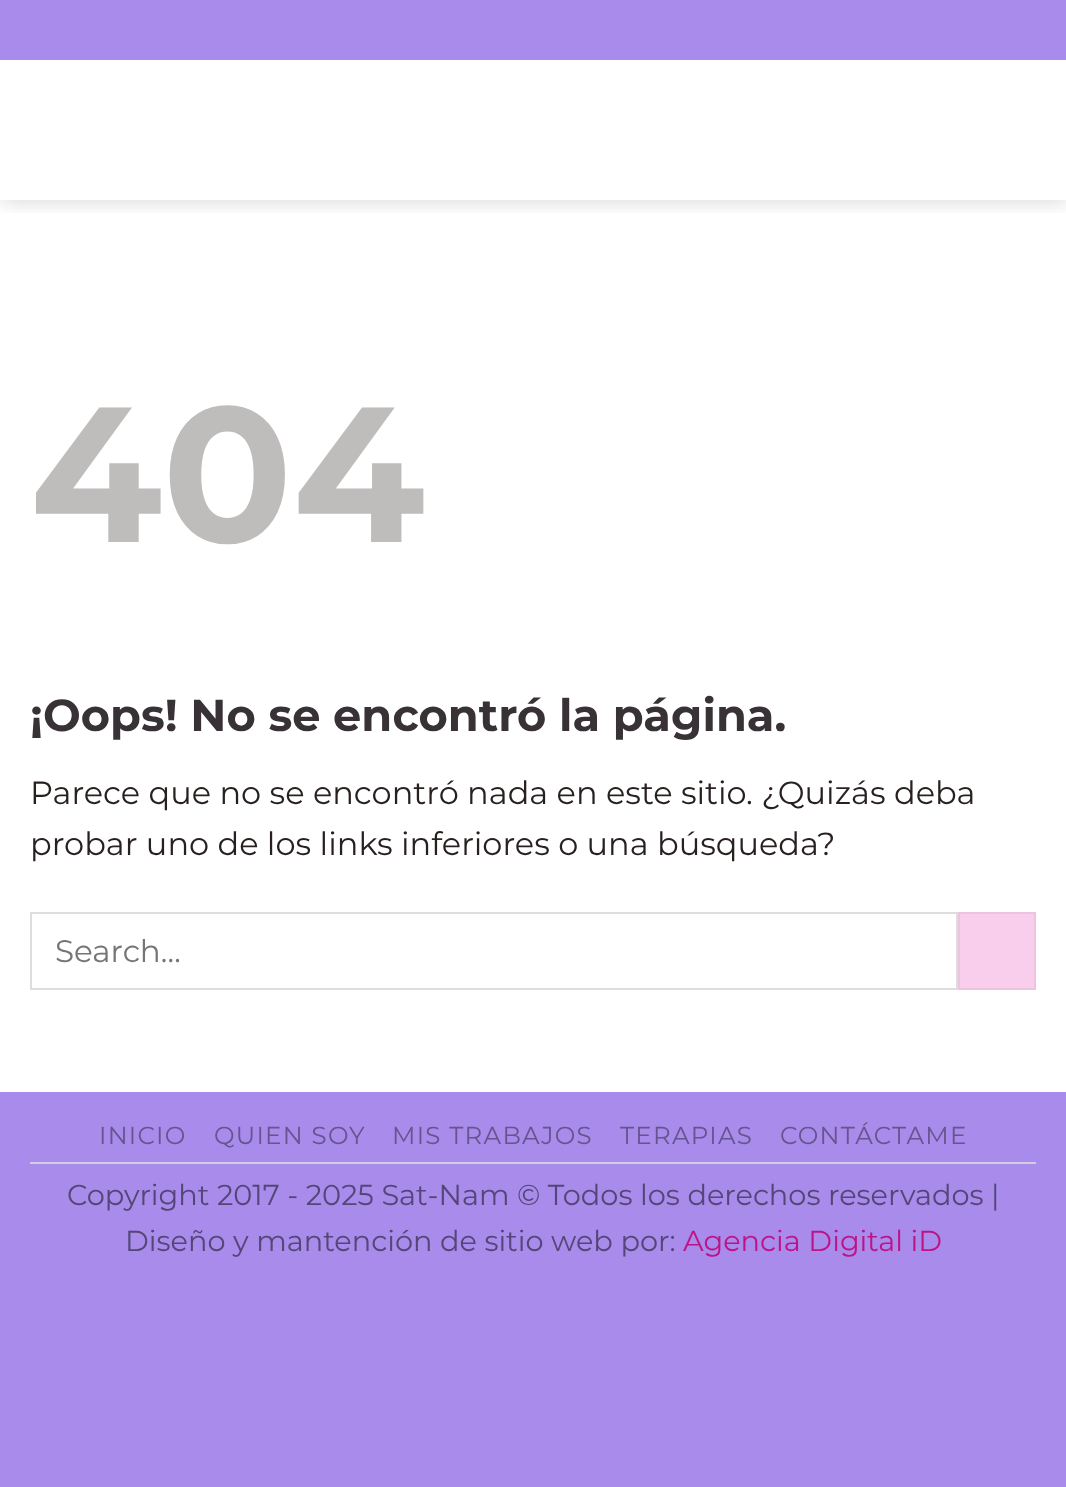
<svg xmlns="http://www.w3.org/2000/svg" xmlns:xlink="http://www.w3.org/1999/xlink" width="1066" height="1487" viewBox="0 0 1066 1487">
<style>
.cls-1{font:bold 192px Montserrat;fill:#bfbcbc}
.cls-2{font:bold 44.75px Montserrat;fill:#383236}
.cls-3{font:32px Montserrat;fill:#281f1f}
.cls-4{font:31px Montserrat;fill:#757575}
.cls-5{font:24.5px Montserrat;letter-spacing:1.25px;fill:#65548d}
.cls-6{font:28.8px Montserrat;fill:#544676}
.cls-7{font:28.8px Montserrat;fill:#bc1487}
</style>
<defs>
<clipPath id="clip1"><rect x="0" y="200" width="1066" height="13"/></clipPath>
</defs>
<rect width="100%" height="100%" fill="#a88beb"/>
<rect fill="#ffffff" x="0" y="60" width="1066" height="1032"/>
<g clip-path="url(#clip1)">
<rect fill="#000000" fill-opacity="0.15" filter="blur(10px)" x="2" y="2" width="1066" height="200"/>
</g>
<rect fill="none" stroke="#dddddd" stroke-width="2" x="31" y="913" width="926" height="76"/>
<rect fill="#f8ceec" stroke="#ecc4e0" stroke-width="2" x="959" y="913" width="76" height="76"/>
<rect fill="#d2cde0" x="30" y="1162" width="1006" height="2"/>
<text class="cls-1" x="30" y="542">404</text>
<text class="cls-2" x="30" y="731">¡Oops! No se encontró la página.</text>
<text class="cls-3"><tspan x="30" y="804">Parece que no se encontró nada en este sitio. ¿Quizás deba</tspan><tspan x="30" y="855">probar uno de los links inferiores o una búsqueda?</tspan></text>
<text class="cls-4" x="55" y="962">Search…</text>
<text class="cls-5" x="99" y="1144">INICIO</text>
<text class="cls-5" x="214" y="1144">QUIEN SOY</text>
<text class="cls-5" x="392" y="1144">MIS TRABAJOS</text>
<text class="cls-5" x="620" y="1144">TERAPIAS</text>
<text class="cls-5" x="780" y="1144">CONTÁCTAME</text>
<text class="cls-6" x="67" y="1205">Copyright 2017 - 2025 Sat-Nam © Todos los derechos reservados</text>
<text class="cls-6" x="991" y="1205">|</text>
<text class="cls-6" x="125" y="1251">Diseño y mantención de sitio web por:</text>
<text class="cls-7" x="683" y="1251">Agencia Digital iD</text>
</svg>
